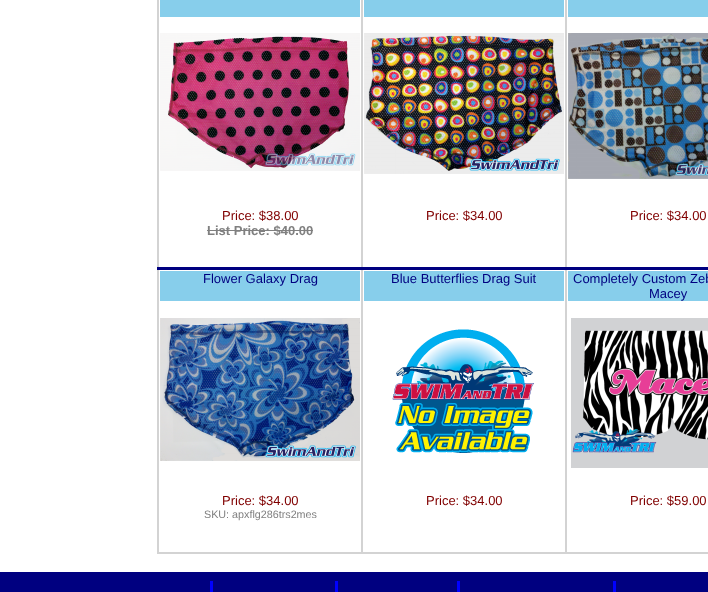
<svg xmlns="http://www.w3.org/2000/svg" xmlns:xlink="http://www.w3.org/1999/xlink" width="708" height="592" viewBox="0 0 708 592">
<style>
.cls-1{font:13px Liberation Sans;fill:#800000}
.cls-2{font:bold 13px Liberation Sans;fill:#808080}
.cls-3{font:13px Liberation Sans;fill:#000080}
.cls-4{font:10.75px Liberation Sans;fill:#808080}
</style>
<rect width="100%" height="100%" fill="#ffffff"/>
<rect fill="#d3d3d3" x="157" y="552" width="551" height="2"/>
<rect fill="#d3d3d3" x="157" y="0" width="2" height="554"/>
<rect fill="#87ceeb" x="160" y="0" width="200" height="17"/>
<image xlink:href="image0.png" x="160" y="33" width="200" height="138"/>
<rect fill="#808080" x="207" y="230" width="106" height="1"/>
<rect fill="#87ceeb" x="364" y="0" width="200" height="17"/>
<image xlink:href="image1.png" x="364" y="33" width="200" height="141"/>
<rect fill="#87ceeb" x="568" y="0" width="140" height="17"/>
<image xlink:href="image2.png" x="568" y="33" width="140" height="146"/>
<rect fill="#87ceeb" x="160" y="271" width="200" height="30"/>
<image xlink:href="image3.png" x="160" y="318" width="200" height="143"/>
<rect fill="#d3d3d3" x="361" y="0" width="2" height="554"/>
<rect fill="#87ceeb" x="364" y="271" width="200" height="30"/>
<image xlink:href="image4.png" x="392" y="329" width="142" height="124"/>
<rect fill="#d3d3d3" x="565" y="0" width="2" height="554"/>
<rect fill="#000080" x="157" y="267" width="551" height="3"/>
<rect fill="#87ceeb" x="568" y="271" width="140" height="30"/>
<image xlink:href="image5.png" x="571" y="318" width="137" height="150"/>
<rect fill="#000080" x="0" y="572" width="708" height="20"/>
<rect fill="#0000ff" x="210" y="581" width="3" height="11"/>
<rect fill="#0000ff" x="335" y="581" width="3" height="11"/>
<rect fill="#0000ff" x="457" y="581" width="3" height="11"/>
<rect fill="#0000ff" x="613" y="581" width="3" height="11"/>
<text class="cls-1" x="222" y="220">Price: $38.00</text>
<text class="cls-2" x="207" y="235">List Price: $40.00</text>
<text class="cls-1" x="426" y="220">Price: $34.00</text>
<text class="cls-1" x="630" y="220">Price: $34.00</text>
<text class="cls-3" x="203" y="283">Flower Galaxy Drag</text>
<text class="cls-1" x="222" y="505">Price: $34.00</text>
<text class="cls-4" x="204" y="518">SKU: apxflg286trs2mes</text>
<text class="cls-3" x="391" y="283">Blue Butterflies Drag Suit</text>
<text class="cls-1" x="426" y="505">Price: $34.00</text>
<text class="cls-3" x="573" y="283">Completely Custom Zeb</text>
<text class="cls-3" x="649" y="298">Macey</text>
<text class="cls-1" x="630" y="505">Price: $59.00</text>
</svg>
